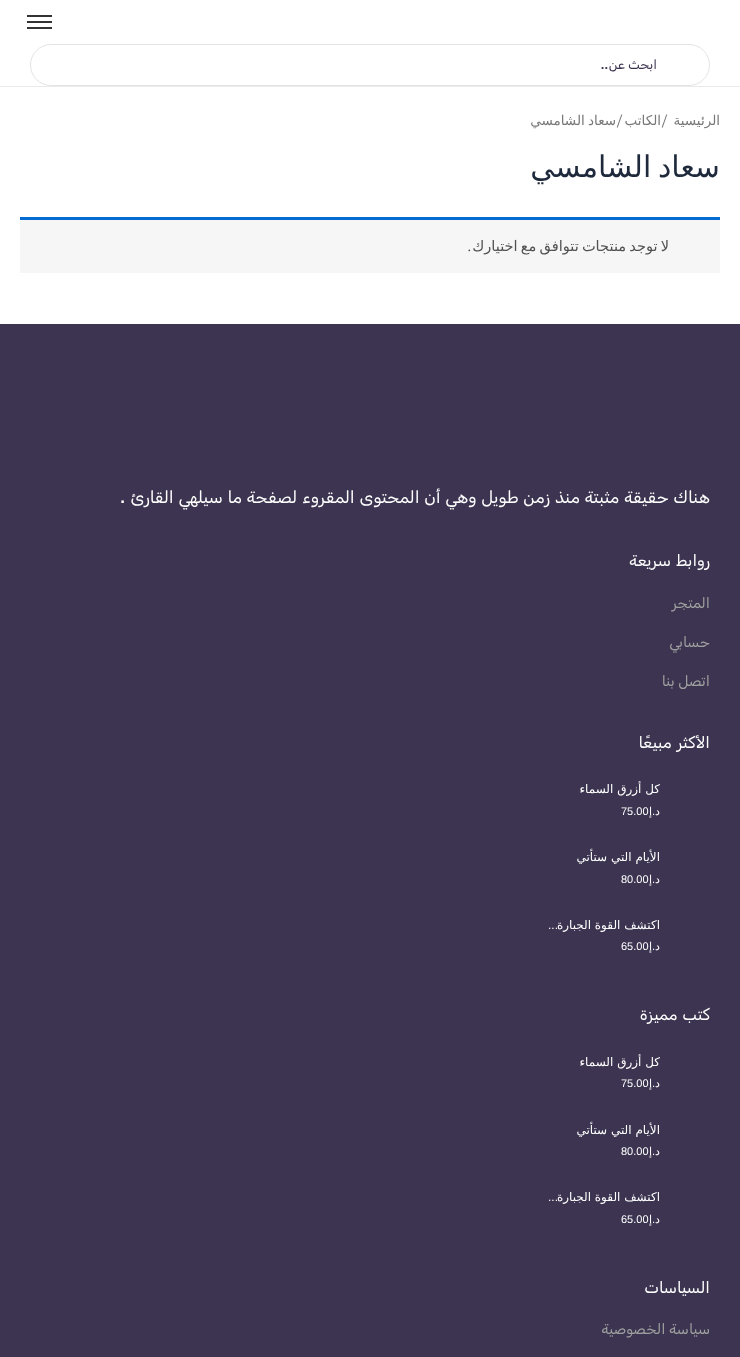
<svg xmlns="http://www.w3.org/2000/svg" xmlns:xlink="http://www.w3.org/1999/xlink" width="740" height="1357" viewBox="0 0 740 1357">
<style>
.cls-1{font:13px Rubik;direction:rtl;fill:#3c3450}
.cls-2{font:bold 13px Liberation Sans;direction:rtl;fill:#3c3450}
.cls-3{font:13.5px DejaVu Sans;direction:rtl;fill:#777777}
.cls-4{font:13.5px Ubuntu;direction:rtl;fill:#777777}
.cls-5{font:30px DejaVu Sans;direction:rtl;fill:#1e293b}
.cls-6{font:14.6px DejaVu Sans;direction:rtl;fill:#515151}
.cls-7{font:14.6px Ubuntu;direction:rtl;fill:#515151}
.cls-8{font:17px Rubik;direction:rtl;fill:#ffffff}
.cls-9{font:bold 17px Liberation Sans;direction:rtl;fill:#ffffff}
.cls-10{font:16px Rubik;direction:rtl;fill:#ffffff}
.cls-11{font:14.6px Rubik;direction:rtl;fill:#9f9f9f}
.cls-12{font:12px DejaVu Sans;direction:rtl;fill:#ffffff}
.cls-13{font:11px DejaVu Sans;direction:rtl;fill:#ffffff}
.cls-14{font:11px Liberation Sans;direction:rtl;fill:#ffffff}
.cls-15{font:11px Liberation Sans;fill:#ffffff}
.cls-16{font:12px Liberation Sans;direction:rtl;fill:#ffffff}
</style>
<rect width="100%" height="100%" fill="#ffffff"/>
<rect fill="#eaeaea" x="0" y="86" width="740" height="1"/>
<rect fill="#333333" x="27" y="15" width="25" height="2"/>
<rect fill="#333333" x="27" y="21" width="25" height="2"/>
<rect fill="#333333" x="27" y="27" width="25" height="2"/>
<rect fill="none" stroke="#e4e4e4" x="30.5" y="44.5" width="679" height="41" rx="20.5"/>
<rect fill="#f7f6f7" x="20" y="220" width="700" height="53"/>
<rect fill="#046bd2" x="20" y="217" width="700" height="3"/>
<rect fill="#3c3450" x="0" y="324" width="740" height="1033"/>
<text class="cls-1" x="657" y="69">ابحث عن</text>
<text class="cls-2" x="608" y="69">..</text>
<text class="cls-3" x="720" y="125">الرئيسية</text>
<text class="cls-4" x="667" y="125">/</text>
<text class="cls-3" x="661" y="125">الكاتب</text>
<text class="cls-4" x="622" y="125">/</text>
<text class="cls-3" x="616" y="125" word-spacing="-1">سعاد الشامسي</text>
<text class="cls-5" x="720" y="177" word-spacing="-3">سعاد الشامسي</text>
<text class="cls-6" x="669" y="251" word-spacing="-1.5">لا توجد منتجات تتوافق مع اختيارك</text>
<text class="cls-7" x="471" y="251">.</text>
<text class="cls-8" x="710" y="503" word-spacing="0.5">هناك حقيقة مثبتة منذ زمن طويل وهي أن المحتوى المقروء لصفحة ما سيلهي القارئ</text>
<text class="cls-9" x="125" y="503">.</text>
<text class="cls-10" x="710" y="566" word-spacing="1">روابط سريعة</text>
<text class="cls-11" x="710" y="608">المتجر</text>
<text class="cls-11" x="710" y="647">حسابي</text>
<text class="cls-11" x="710" y="686">اتصل بنا</text>
<text class="cls-10" x="710" y="748" word-spacing="1">الأكثر مبيعًا</text>
<text class="cls-12" x="660" y="793">كل أزرق السماء</text>
<text class="cls-13" x="660" y="815">د</text>
<text class="cls-14" x="655" y="815">.</text>
<text class="cls-13" x="652" y="815">إ</text>
<text class="cls-15" x="621" y="815">75.00</text>
<text class="cls-12" x="660" y="861">الأيام التي ستأتي</text>
<text class="cls-13" x="660" y="883">د</text>
<text class="cls-14" x="655" y="883">.</text>
<text class="cls-13" x="652" y="883">إ</text>
<text class="cls-15" x="621" y="883">80.00</text>
<text class="cls-12" x="660" y="929">اكتشف القوة الجبارة</text>
<text class="cls-16" x="558" y="929">...</text>
<text class="cls-13" x="660" y="950">د</text>
<text class="cls-14" x="655" y="950">.</text>
<text class="cls-13" x="652" y="950">إ</text>
<text class="cls-15" x="621" y="950">65.00</text>
<text class="cls-10" x="710" y="1020" word-spacing="1">كتب مميزة</text>
<text class="cls-12" x="660" y="1066">كل أزرق السماء</text>
<text class="cls-13" x="660" y="1087">د</text>
<text class="cls-14" x="655" y="1087">.</text>
<text class="cls-13" x="652" y="1087">إ</text>
<text class="cls-15" x="621" y="1087">75.00</text>
<text class="cls-12" x="660" y="1134">الأيام التي ستأتي</text>
<text class="cls-13" x="660" y="1155">د</text>
<text class="cls-14" x="655" y="1155">.</text>
<text class="cls-13" x="652" y="1155">إ</text>
<text class="cls-15" x="621" y="1155">80.00</text>
<text class="cls-12" x="660" y="1201">اكتشف القوة الجبارة</text>
<text class="cls-16" x="558" y="1201">...</text>
<text class="cls-13" x="660" y="1223">د</text>
<text class="cls-14" x="655" y="1223">.</text>
<text class="cls-13" x="652" y="1223">إ</text>
<text class="cls-15" x="621" y="1223">65.00</text>
<text class="cls-10" x="710" y="1293">السياسات</text>
<text class="cls-11" x="710" y="1334">سياسة الخصوصية</text>
</svg>
